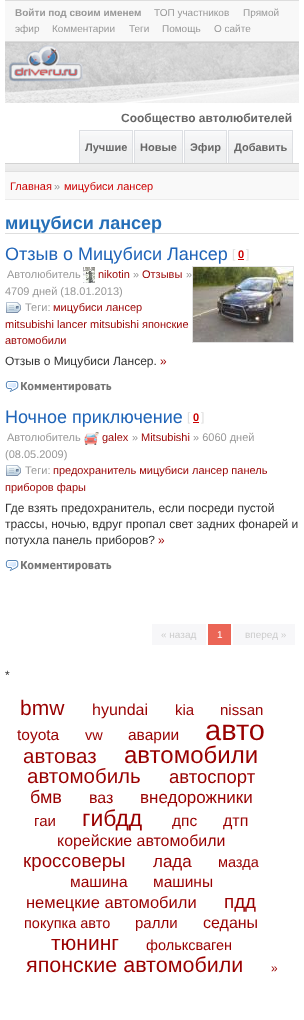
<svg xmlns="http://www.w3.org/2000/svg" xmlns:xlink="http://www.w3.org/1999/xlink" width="304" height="1020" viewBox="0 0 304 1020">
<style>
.cls-1{font:bold 10px Liberation Sans;fill:#999999}
.cls-2{font:10px Liberation Sans;fill:#999999}
.cls-3{font:bold 12px Liberation Sans;fill:#666666}
.cls-4{font:bold 11px Liberation Sans;fill:#666666}
.cls-5{font:11px Liberation Sans;fill:#cc0000}
.cls-6{font:11px Liberation Sans;fill:#999999}
.cls-7{font:bold 18px Liberation Sans;fill:#256fb8}
.cls-8{font:18px Liberation Sans;fill:#1f64b8}
.cls-9{font:12px Liberation Sans;fill:#dedede}
.cls-10{font:bold 11px Liberation Sans;fill:#cc0000}
.cls-11{font:11px Liberation Sans;fill:#990000}
.cls-12{font:12px Liberation Sans;fill:#333333}
.cls-13{font:12px Liberation Sans;fill:#990000}
.cls-14{font:10px Liberation Sans;fill:#cccccc}
.cls-15{font:10px Liberation Sans;fill:#ffffff}
.cls-16{font:21px Liberation Sans;fill:#990000}
.cls-17{font:16px Liberation Sans;fill:#990000}
.cls-18{font:15px Liberation Sans;fill:#990000}
.cls-19{font:15.5px Liberation Sans;fill:#990000}
.cls-20{font:14.5px Liberation Sans;fill:#990000}
.cls-21{font:29px Liberation Sans;fill:#990000}
.cls-22{font:20.5px Liberation Sans;fill:#990000}
.cls-23{font:24px Liberation Sans;fill:#990000}
.cls-24{font:18.5px Liberation Sans;fill:#990000}
.cls-25{font:18px Liberation Sans;fill:#990000}
.cls-26{font:17px Liberation Sans;fill:#990000}
.cls-27{font:23px Liberation Sans;fill:#990000}
.cls-28{font:15.9px Liberation Sans;fill:#990000}
.cls-29{font:18.75px Liberation Sans;fill:#990000}
.cls-30{font:16.5px Liberation Sans;fill:#990000}
.cls-31{font:21.5px Liberation Sans;fill:#990000}
</style>
<rect width="100%" height="100%" fill="#ffffff"/>
<rect fill="#f8f8f8" x="5" y="1" width="294" height="40"/>
<rect fill="#dddddd" x="5" y="0" width="294" height="1"/>
<rect fill="#dddddd" x="5" y="41" width="294" height="1"/>
<image xlink:href="image0.png" x="5" y="43" width="294" height="60"/>
<rect fill="#cccccc" x="5" y="42" width="294" height="1"/>
<image xlink:href="image1.png" x="9" y="45" width="74" height="37"/>
<image xlink:href="image2.png" x="79" y="130" width="54" height="33"/>
<rect fill="#dddfe3" x="79" y="131" width="1" height="32"/>
<image xlink:href="image3.png" x="134" y="130" width="49" height="33"/>
<rect fill="#dddfe3" x="134" y="131" width="1" height="32"/>
<image xlink:href="image4.png" x="184" y="130" width="43" height="33"/>
<rect fill="#dddfe3" x="184" y="131" width="1" height="32"/>
<image xlink:href="image5.png" x="228" y="130" width="65" height="33"/>
<rect fill="#dddfe3" x="228" y="131" width="1" height="32"/>
<image xlink:href="image6.png" x="5" y="163" width="294" height="37"/>
<rect fill="#dedede" x="5" y="233" width="294" height="1"/>
<rect fill="#cc0000" x="238" y="259" width="6" height="1"/>
<image xlink:href="image7.png" x="83" y="267" width="12" height="16"/>
<image xlink:href="image8.png" x="6" y="302" width="15" height="11"/>
<rect fill="none" stroke="#e1e1e1" x="192.5" y="266.5" width="101" height="76"/>
<image xlink:href="image9.png" x="193" y="267" width="100" height="75"/>
<image xlink:href="image10.png" x="5" y="381" width="107" height="12"/>
<rect fill="#cc0000" x="193" y="422" width="6" height="1"/>
<image xlink:href="image11.png" x="84" y="432" width="15" height="13"/>
<image xlink:href="image8.png" x="6" y="465" width="15" height="11"/>
<image xlink:href="image10.png" x="5" y="560" width="107" height="12"/>
<rect fill="#f7f7f9" x="152" y="624" width="54" height="21"/>
<rect fill="#eb6556" x="208" y="624" width="23" height="21"/>
<rect fill="#f7f7f9" x="233" y="624" width="62" height="21"/>
<text class="cls-1" x="15" y="16">Войти под своим именем</text>
<text class="cls-2" x="154" y="16">ТОП участников</text>
<text class="cls-2" x="243" y="16">Прямой</text>
<text class="cls-2" x="15" y="32">эфир</text>
<text class="cls-2" x="52" y="32">Комментарии</text>
<text class="cls-2" x="129" y="32">Теги</text>
<text class="cls-2" x="162" y="32">Помощь</text>
<text class="cls-2" x="214" y="32">О сайте</text>
<text class="cls-3" x="121" y="122">Сообщество автолюбителей</text>
<text class="cls-4" x="85" y="151">Лучшие</text>
<text class="cls-4" x="140" y="151">Новые</text>
<text class="cls-4" x="190" y="151">Эфир</text>
<text class="cls-4" x="234" y="151">Добавить</text>
<text class="cls-5" x="10" y="190">Главная</text>
<text class="cls-6" x="54" y="190">»</text>
<text class="cls-5" x="64" y="190">мицубиси лансер</text>
<text class="cls-7" x="5" y="229">мицубиси лансер</text>
<text class="cls-8" x="5" y="260">Отзыв о Мицубиси Лансер</text>
<text class="cls-9" x="232" y="258">[</text>
<text class="cls-10" x="238" y="258">0</text>
<text class="cls-9" x="246" y="258">]</text>
<text class="cls-6" x="7" y="278">Автолюбитель</text>
<text class="cls-11" x="98" y="278">nikotin</text>
<text class="cls-6" x="133" y="278">»</text>
<text class="cls-11" x="142" y="278">Отзывы</text>
<text class="cls-6" x="186" y="278">»</text>
<text class="cls-6" x="5" y="295">4709 дней (18.01.2013)</text>
<text class="cls-6" x="25" y="311">Теги:</text>
<text class="cls-11" x="53" y="311">мицубиси лансер</text>
<text class="cls-11"><tspan x="5" y="328">mitsubishi lancer mitsubishi японские</tspan><tspan x="5" y="344">автомобили</tspan></text>
<text class="cls-12" x="5" y="365">Отзыв о Мицубиси Лансер.</text>
<text class="cls-13" x="160" y="365">»</text>
<text class="cls-8" x="5" y="423">Ночное приключение</text>
<text class="cls-9" x="187" y="421">[</text>
<text class="cls-10" x="193" y="421">0</text>
<text class="cls-9" x="201" y="421">]</text>
<text class="cls-6" x="7" y="441">Автолюбитель</text>
<text class="cls-11" x="102" y="441">galex</text>
<text class="cls-6" x="132" y="441">»</text>
<text class="cls-11" x="141" y="441">Mitsubishi</text>
<text class="cls-6" x="193" y="441">» 6060 дней</text>
<text class="cls-6" x="5" y="458">(08.05.2009)</text>
<text class="cls-6" x="25" y="474">Теги:</text>
<text class="cls-11" x="53" y="474">предохранитель мицубиси лансер панель</text>
<text class="cls-11" x="5" y="491">приборов фары</text>
<text class="cls-12"><tspan x="5" y="512">Где взять предохранитель, если посреди пустой</tspan><tspan x="5" y="528">трассы, ночью, вдруг пропал свет задних фонарей и</tspan><tspan x="5" y="544">потухла панель приборов?</tspan></text>
<text class="cls-13" x="158" y="544">»</text>
<text class="cls-14" x="161" y="638">« назад</text>
<text class="cls-15" x="217" y="638">1</text>
<text class="cls-14" x="245" y="638">вперед »</text>
<text class="cls-12" x="5" y="679">*</text>
<text class="cls-16" x="20" y="715">bmw</text>
<text class="cls-17" x="92" y="715">hyundai</text>
<text class="cls-18" x="175" y="715">kia</text>
<text class="cls-18" x="220" y="715">nissan</text>
<text class="cls-19" x="17" y="740">toyota</text>
<text class="cls-20" x="85" y="740">vw</text>
<text class="cls-19" x="128" y="740">аварии</text>
<text class="cls-21" x="205" y="740">авто</text>
<text class="cls-22" x="23" y="763">автоваз</text>
<text class="cls-23" x="124" y="763">автомобили</text>
<text class="cls-22" x="27" y="783">автомобиль</text>
<text class="cls-24" x="169" y="783">автоспорт</text>
<text class="cls-25" x="30" y="803">бмв</text>
<text class="cls-17" x="89" y="803">ваз</text>
<text class="cls-26" x="140" y="803">внедорожники</text>
<text class="cls-18" x="34" y="826">гаи</text>
<text class="cls-27" x="82" y="826">гибдд</text>
<text class="cls-19" x="172" y="826">дпс</text>
<text class="cls-17" x="223" y="826">дтп</text>
<text class="cls-28" x="57" y="846">корейские автомобили</text>
<text class="cls-29" x="23" y="867">кроссоверы</text>
<text class="cls-26" x="153" y="867">лада</text>
<text class="cls-20" x="218" y="867">мазда</text>
<text class="cls-19" x="70" y="887">машина</text>
<text class="cls-19" x="153" y="887">машины</text>
<text class="cls-30" x="26" y="908">немецкие автомобили</text>
<text class="cls-29" x="224" y="908">пдд</text>
<text class="cls-20" x="24" y="928">покупка авто</text>
<text class="cls-18" x="135" y="928">ралли</text>
<text class="cls-17" x="203" y="928">седаны</text>
<text class="cls-16" x="51" y="950">тюнинг</text>
<text class="cls-20" x="146" y="950">фольксваген</text>
<text class="cls-31" x="26" y="972">японские автомобили</text>
<text class="cls-13" x="271" y="972">»</text>
</svg>
